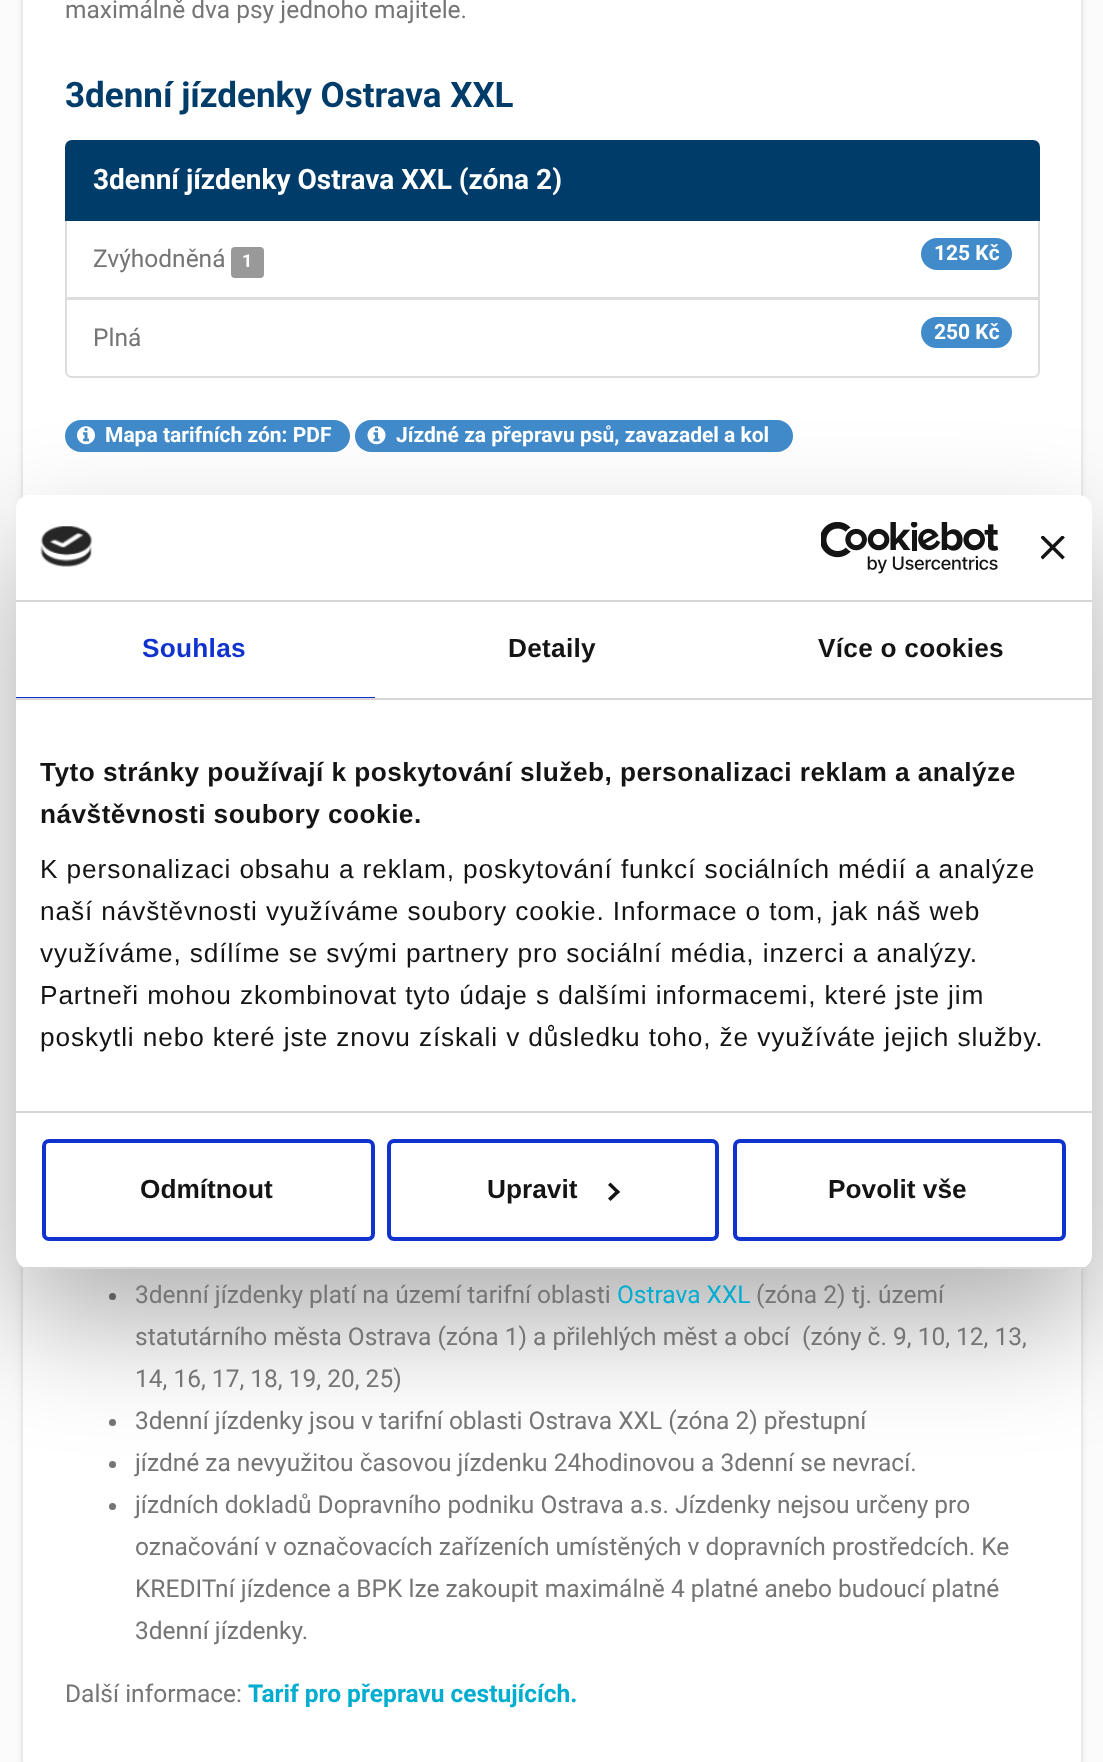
<svg xmlns="http://www.w3.org/2000/svg" xmlns:xlink="http://www.w3.org/1999/xlink" width="1103" height="1762" viewBox="0 0 1103 1762">
<style>
.cls-1{font:24.5px Roboto;fill:#757575}
.cls-2{font:bold 35px Roboto;fill:#003c69}
.cls-3{font:bold 28px Roboto;fill:#ffffff}
.cls-4{font:bold 18px Roboto;fill:#ffffff}
.cls-5{font:bold 21px Roboto;fill:#ffffff}
.cls-6{font:24.5px Roboto;fill:#00add0}
.cls-7{font:bold 24.5px Roboto;fill:#00add0}
.cls-8{font:bold 26.25px Liberation Sans;letter-spacing:0.25px;fill:#1032cf}
.cls-9{font:bold 26.25px Liberation Sans;letter-spacing:0.25px;fill:#141414}
.cls-10{font:bold 26.25px Liberation Sans;letter-spacing:0.45px;fill:#141414}
.cls-11{font:26.25px Liberation Sans;letter-spacing:0.88px;fill:#141414}
.cls-12{font:bold 26.25px Liberation Sans;fill:#141414}
</style>
<defs>
<clipPath id="clip1"><rect x="16" y="495" width="1076" height="774" rx="14"/></clipPath>
</defs>
<rect width="100%" height="100%" fill="#fbfbfb"/>
<rect fill="#000000" fill-opacity="0.05" filter="blur(3.5px)" x="21" y="-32" width="1062" height="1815" rx="21"/>
<rect fill="#ffffff" stroke="#eaeaea" stroke-width="2" x="22" y="-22" width="1060" height="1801" rx="20"/>
<rect fill="none" stroke="#dddddd" stroke-width="2" x="66" y="220" width="973" height="78"/>
<path fill="#003c69" stroke="#003c69" stroke-width="2" d="M72 141H1033C1036.5 141 1039 143.5 1039 147V220H66V147C66 143.5 68.5 141 72 141Z"/>
<rect fill="#999999" x="231" y="247" width="33" height="31" rx="4"/>
<rect fill="#428bca" x="921" y="238" width="91" height="32" rx="16"/>
<path fill="#ffffff" stroke="#dddddd" stroke-width="2" d="M66 299H1039V371C1039 374.5 1036.5 377 1033 377H72C68.5 377 66 374.5 66 371Z"/>
<rect fill="#428bca" x="921" y="317" width="91" height="31" rx="15.5"/>
<rect fill="#428bca" x="65" y="420" width="285" height="32" rx="16"/>
<image xlink:href="image0.png" x="77" y="426" width="18" height="19"/>
<rect fill="#428bca" x="355" y="420" width="438" height="32" rx="16"/>
<image xlink:href="image1.png" x="367" y="426" width="19" height="19"/>
<circle fill="#757575" cx="112.5" cy="1296.5" r="3.5"/>
<circle fill="#757575" cx="112.5" cy="1422.5" r="3.5"/>
<circle fill="#757575" cx="112.5" cy="1464.5" r="3.5"/>
<circle fill="#757575" cx="112.5" cy="1506.5" r="3.5"/>
<rect fill="#000000" fill-opacity="0.3" filter="blur(59.5px)" x="16" y="551" width="1076" height="774" rx="14"/>
<rect fill="#ffffff" x="16" y="495" width="1076" height="774" rx="14"/>
<rect fill="#d6d6d6" x="16" y="600" width="1076" height="2"/>
<image xlink:href="image2.png" x="40" y="526" width="53" height="41"/>
<image xlink:href="image3.png" x="821" y="522" width="178" height="52"/>
<image xlink:href="image4.png" x="1041" y="536" width="24" height="24"/>
<rect fill="#d6d6d6" x="16" y="698" width="1076" height="2"/>
<rect fill="#1032cf" x="16" y="697" width="359" height="1"/>
<rect fill="#d6d6d6" x="16" y="1111" width="1076" height="2"/>
<g clip-path="url(#clip1)">
<rect fill="#d6d6d6" x="16" y="1267" width="1076" height="2"/>
</g>
<rect fill="none" stroke="#1032cf" stroke-width="4" x="44" y="1141" width="329" height="98" rx="5"/>
<rect fill="none" stroke="#1032cf" stroke-width="4" x="389" y="1141" width="328" height="98" rx="5"/>
<path fill="#141414" d="M610.5 1182.5L620 1192L617.5 1194L608 1185Z"/>
<path fill="#141414" d="M617.5 1189.5L620 1192L610.5 1201L608 1198.5Z"/>
<rect fill="none" stroke="#1032cf" stroke-width="4" x="735" y="1141" width="329" height="98" rx="5"/>
<text class="cls-1" x="65" y="18">maximálně dva psy jednoho majitele.</text>
<text class="cls-2" x="65" y="107">3denní jízdenky Ostrava XXL</text>
<text class="cls-3" x="93" y="189">3denní jízdenky Ostrava XXL (zóna 2)</text>
<text class="cls-1" x="93" y="267">Zvýhodněná</text>
<text class="cls-4" x="242" y="267">1</text>
<text class="cls-5" x="934" y="260">125 Kč</text>
<text class="cls-1" x="93" y="346">Plná</text>
<text class="cls-5" x="934" y="339">250 Kč</text>
<text class="cls-5" x="105" y="442">Mapa tarifních zón: PDF</text>
<text class="cls-5" x="396" y="442">Jízdné za přepravu psů, zavazadel a kol</text>
<text class="cls-1" x="135" y="1303">3denní jízdenky platí na území tarifní oblasti</text>
<text class="cls-6" x="617" y="1303">Ostrava XXL</text>
<text class="cls-1" x="756" y="1303">(zóna 2) tj. území</text>
<text class="cls-1" xml:space="preserve"><tspan x="135" y="1345">statutárního města Ostrava (zóna 1) a přilehlých měst a obcí  (zóny č. 9, 10, 12, 13,</tspan><tspan x="135" y="1387">14, 16, 17, 18, 19, 20, 25)</tspan><tspan x="135" y="1429">3denní jízdenky jsou v tarifní oblasti Ostrava XXL (zóna 2) přestupní</tspan><tspan x="135" y="1471">jízdné za nevyužitou časovou jízdenku 24hodinovou a 3denní se nevrací.</tspan><tspan x="135" y="1513">jízdních dokladů Dopravního podniku Ostrava a.s. Jízdenky nejsou určeny pro</tspan><tspan x="135" y="1555">označování v označovacích zařízeních umístěných v dopravních prostředcích. Ke</tspan><tspan x="135" y="1597">KREDITní jízdence a BPK lze zakoupit maximálně 4 platné anebo budoucí platné</tspan><tspan x="135" y="1639">3denní jízdenky.</tspan></text>
<text class="cls-1" x="65" y="1702">Další informace:</text>
<text class="cls-7" x="248" y="1702">Tarif pro přepravu cestujících.</text>
<text class="cls-8" x="142" y="657">Souhlas</text>
<text class="cls-9" x="508" y="657">Detaily</text>
<text class="cls-9" x="818" y="657">Více o cookies</text>
<text class="cls-10"><tspan x="40" y="781">Tyto stránky používají k poskytování služeb, personalizaci reklam a analýze</tspan><tspan x="40" y="823">návštěvnosti soubory cookie.</tspan></text>
<text class="cls-11"><tspan x="40" y="878">K personalizaci obsahu a reklam, poskytování funkcí sociálních médií a analýze</tspan><tspan x="40" y="920">naší návštěvnosti využíváme soubory cookie. Informace o tom, jak náš web</tspan><tspan x="40" y="962">využíváme, sdílíme se svými partnery pro sociální média, inzerci a analýzy.</tspan><tspan x="40" y="1004">Partneři mohou zkombinovat tyto údaje s dalšími informacemi, které jste jim</tspan><tspan x="40" y="1046">poskytli nebo které jste znovu získali v důsledku toho, že využíváte jejich služby.</tspan></text>
<text class="cls-12" x="140" y="1198">Odmítnout</text>
<text class="cls-12" x="487" y="1198">Upravit</text>
<text class="cls-12" x="828" y="1198">Povolit vše</text>
</svg>
